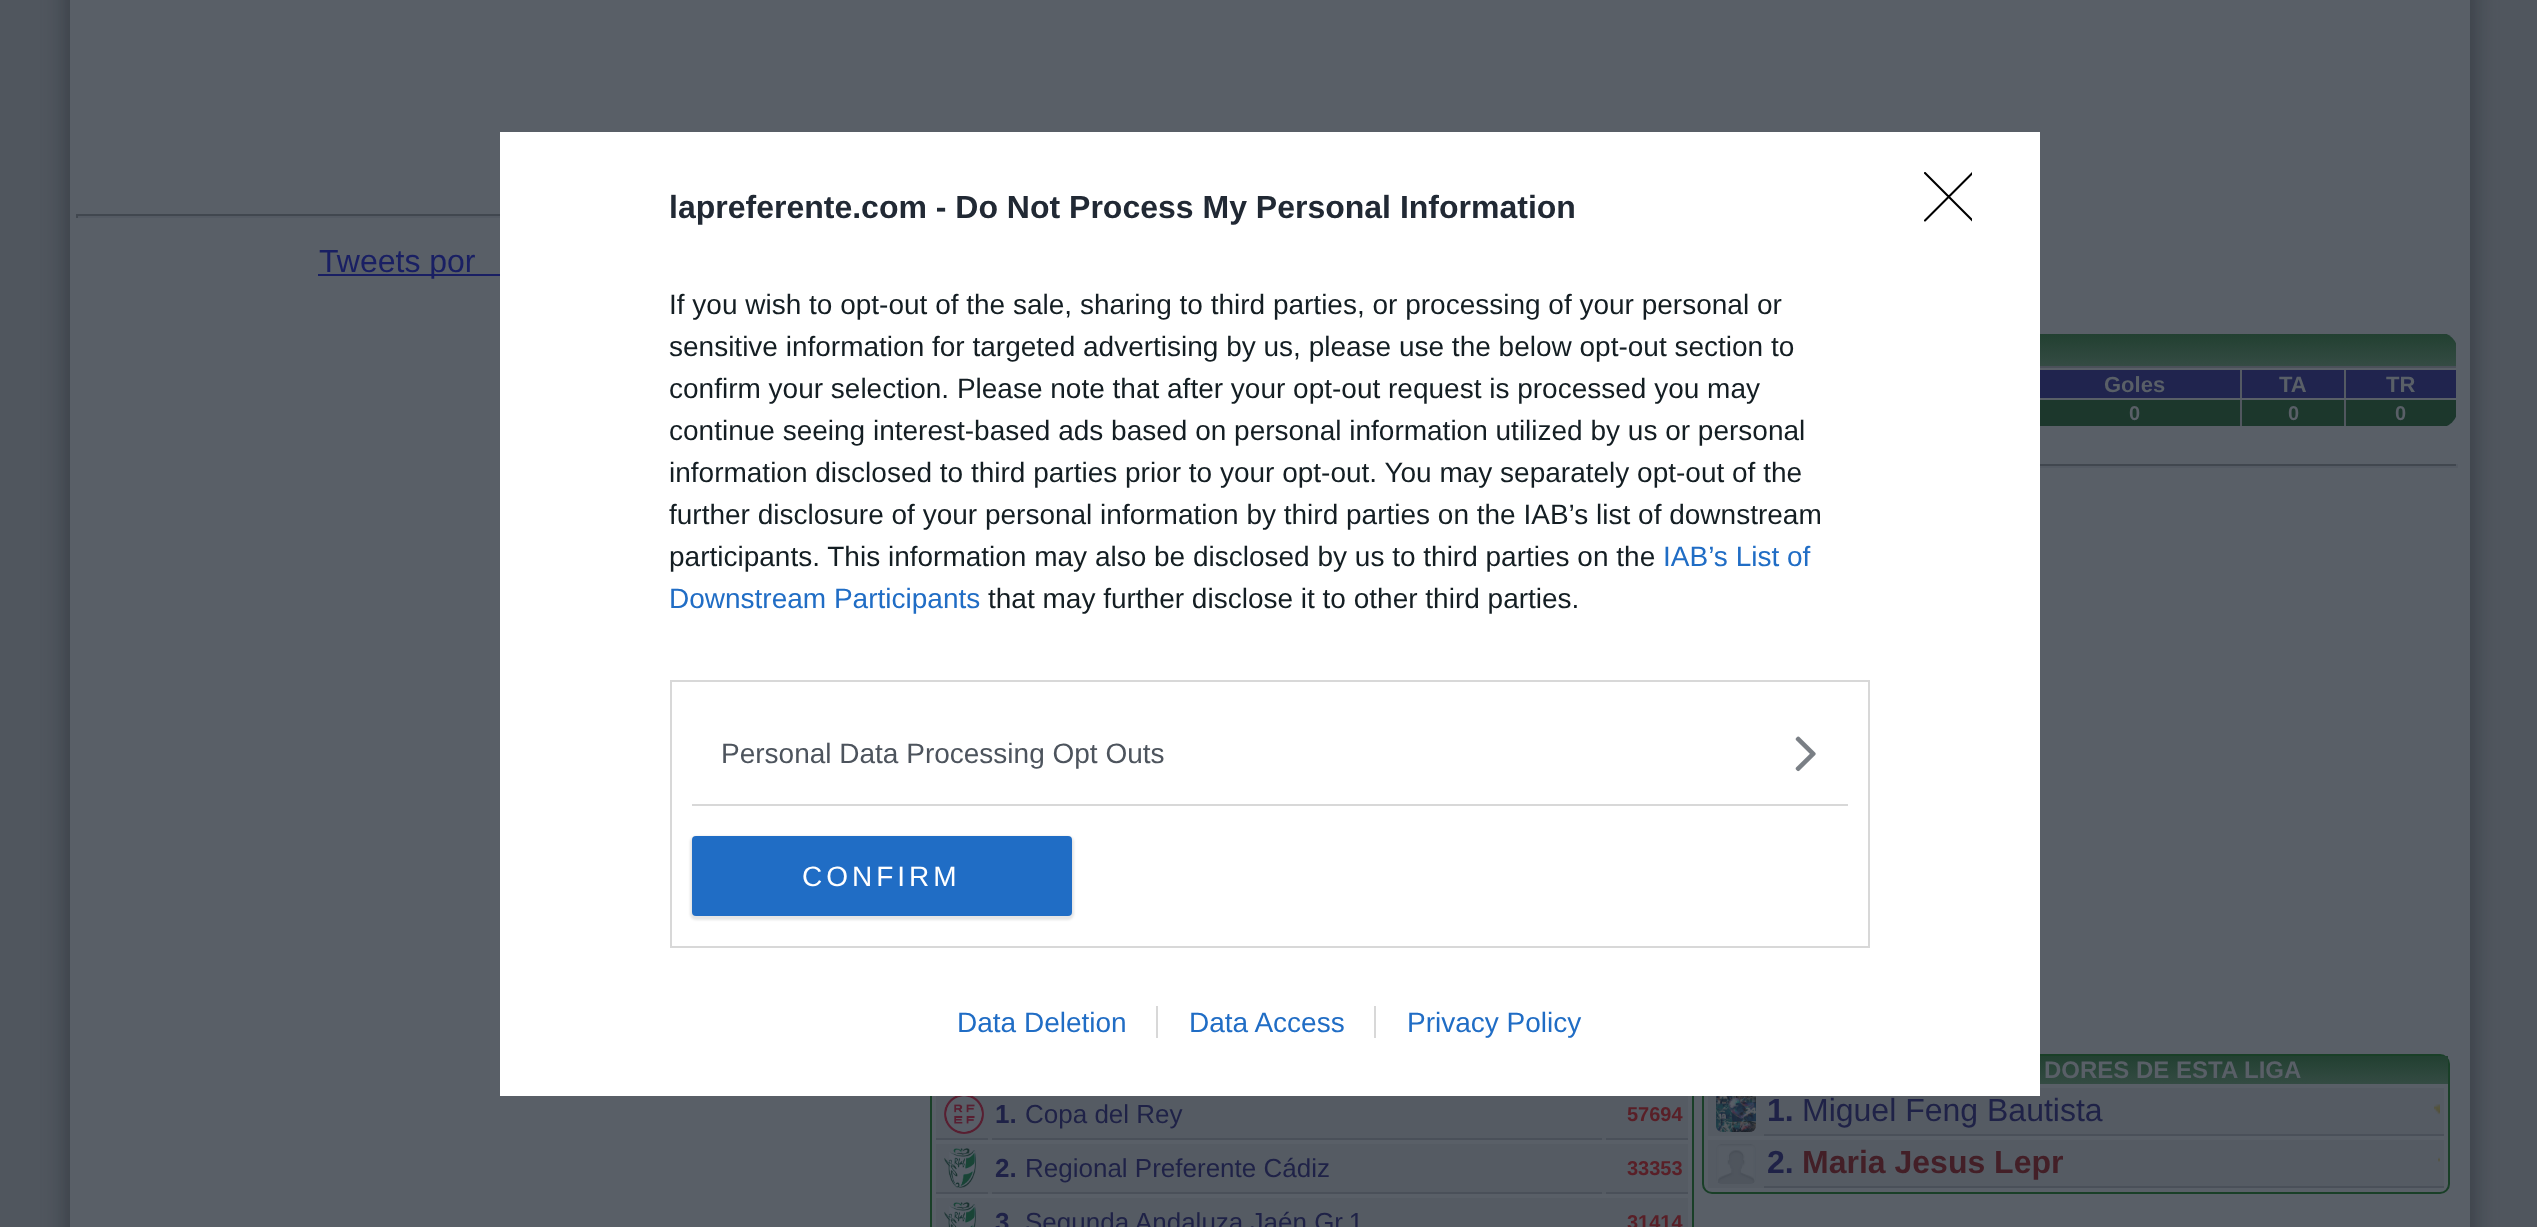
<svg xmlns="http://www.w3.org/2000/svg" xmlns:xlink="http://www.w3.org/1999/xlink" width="2537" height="1227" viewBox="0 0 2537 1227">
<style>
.cls-1{font:bold 32px Liberation Sans;fill:#212934}
.cls-2{font:28px Liberation Sans;fill:#141e23}
.cls-3{font:28px Liberation Sans;fill:#206dc5}
.cls-4{font:28px Liberation Sans;fill:#4d545d}
.cls-5{font:28px Liberation Sans;letter-spacing:4px;fill:#ffffff}
.cls-6{font:32px Liberation Sans;fill:#191f63}
.cls-7{font:bold 22px Liberation Sans;fill:#595f67}
.cls-8{font:bold 20px Liberation Sans;fill:#595f67}
.cls-9{font:bold 26px Liberation Sans;fill:#1f2247}
.cls-10{font:26px Liberation Sans;fill:#1f2247}
.cls-11{font:bold 20px Liberation Sans;fill:#591f27}
.cls-12{font:bold 24px Liberation Sans;fill:#595f67}
.cls-13{font:bold 32px Liberation Sans;fill:#1f2247}
.cls-14{font:32px Liberation Sans;fill:#1f2247}
.cls-15{font:bold 32px Liberation Sans;fill:#431f27}
</style>
<defs>
<clipPath id="clip1"><rect x="1924" y="172" width="48" height="50"/></clipPath>
<clipPath id="clip2"><rect x="930" y="332" width="1528" height="96" rx="20"/></clipPath>
<linearGradient id="g1" gradientUnits="userSpaceOnUse" x1="1694" y1="334" x2="1694" y2="366"><stop offset="0" stop-color="#224031"/><stop offset="1" stop-color="#344b43"/></linearGradient>
<linearGradient id="g2" gradientUnits="userSpaceOnUse" x1="2076" y1="1056" x2="2076" y2="1084"><stop offset="0" stop-color="#224031"/><stop offset="1" stop-color="#344b43"/></linearGradient>
</defs>
<rect width="100%" height="100%" fill="#50565e"/>
<rect fill="#3b4149" filter="blur(10px)" x="64" y="-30" width="2412" height="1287"/>
<rect fill="#595f67" x="70" y="0" width="2400" height="1227"/>
<rect fill="none" stroke="#193f27" stroke-width="2" x="931" y="1055" width="762" height="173"/>
<rect fill="none" stroke="#193f27" stroke-width="2" x="1703" y="1055" width="746" height="138" rx="9"/>
<rect fill="#555b63" x="1708" y="1088" width="736" height="48"/>
<rect fill="#ffffff" x="500" y="132" width="1540" height="964"/>
<rect fill="none" stroke="#d8d8d8" stroke-width="2" x="671" y="681" width="1198" height="266"/>
<rect fill="#d8d8d8" x="692" y="804" width="1156" height="2"/>
<image xlink:href="image0.png" x="1795" y="736" width="21" height="36"/>
<rect fill="#000000" fill-opacity="0.1" filter="blur(1px)" x="690" y="836" width="384" height="84" rx="6"/>
<rect fill="#206dc5" x="692" y="836" width="380" height="80" rx="4"/>
<g clip-path="url(#clip1)">
<path fill="none" stroke="#000000" stroke-width="2.1" stroke-linecap="round" stroke-linejoin="round" d="M1925 173L1972.5 220.5M1972.5 173L1925 220.5"/>
</g>
<rect fill="#d8d8d8" x="1156" y="1006" width="2" height="32"/>
<rect fill="#d8d8d8" x="1374" y="1006" width="2" height="32"/>
<rect fill="#41474f" x="76" y="214" width="424" height="2"/>
<rect fill="#545a63" x="76" y="216" width="424" height="2"/>
<rect fill="#41474f" x="76" y="214" width="2" height="4"/>
<rect fill="#191f63" x="318" y="274" width="182" height="2"/>
<g clip-path="url(#clip2)">
<rect fill="url(#g1)" x="2040" y="334" width="416" height="32"/>
</g>
<rect fill="#4a5059" x="2040" y="366" width="416" height="2"/>
<rect fill="#545a63" x="2240" y="370" width="106" height="28"/>
<rect fill="#20244e" x="2040" y="370" width="200" height="28"/>
<rect fill="#20244e" x="2242" y="370" width="102" height="28"/>
<rect fill="#20244e" x="2346" y="370" width="110" height="28"/>
<g clip-path="url(#clip2)">
<rect fill="#51575f" x="2240" y="400" width="216" height="26"/>
</g>
<rect fill="#1c372c" x="2040" y="400" width="200" height="26"/>
<rect fill="#1c372c" x="2242" y="400" width="102" height="26"/>
<g clip-path="url(#clip2)">
<rect fill="#1c372c" x="2346" y="400" width="110" height="26"/>
</g>
<rect fill="#41474f" x="2040" y="464" width="418" height="2"/>
<rect fill="#545a63" x="2456" y="464" width="2" height="4"/>
<rect fill="#545a63" x="2040" y="466" width="418" height="2"/>
<rect fill="#555b63" x="936" y="1096" width="752" height="44"/>
<rect fill="#4a5059" x="936" y="1138" width="52" height="2"/>
<image xlink:href="image1.png" x="944" y="1096" width="40" height="38"/>
<rect fill="#4a5059" x="992" y="1138" width="610" height="2"/>
<rect fill="#4a5059" x="1606" y="1138" width="82" height="2"/>
<rect fill="#555b63" x="936" y="1144" width="752" height="50"/>
<rect fill="#4a5059" x="936" y="1192" width="52" height="2"/>
<image xlink:href="image2.png" x="944" y="1148" width="32" height="40"/>
<rect fill="#4a5059" x="992" y="1192" width="610" height="2"/>
<rect fill="#4a5059" x="1606" y="1192" width="82" height="2"/>
<rect fill="#555b63" x="936" y="1198" width="752" height="29"/>
<image xlink:href="image3.png" x="944" y="1202" width="32" height="25"/>
<rect fill="url(#g2)" x="2040" y="1056" width="408" height="28"/>
<image xlink:href="image4.png" x="1716" y="1096" width="40" height="36"/>
<rect fill="#4a5059" x="1764" y="1134" width="680" height="2"/>
<image xlink:href="image5.png" x="2434" y="1104" width="6" height="11"/>
<rect fill="#555b63" x="1708" y="1140" width="736" height="48"/>
<image xlink:href="image6.png" x="1716" y="1144" width="40" height="40"/>
<rect fill="#4a5059" x="1764" y="1186" width="680" height="2"/>
<image xlink:href="image7.png" x="2438" y="1157" width="2" height="5"/>
<text class="cls-1" x="669" y="218">lapreferente.com - Do Not Process My Personal Information</text>
<text class="cls-2"><tspan x="669" y="314">If you wish to opt-out of the sale, sharing to third parties, or processing of your personal or</tspan><tspan x="669" y="356">sensitive information for targeted advertising by us, please use the below opt-out section to</tspan><tspan x="669" y="398">confirm your selection. Please note that after your opt-out request is processed you may</tspan><tspan x="669" y="440">continue seeing interest-based ads based on personal information utilized by us or personal</tspan><tspan x="669" y="482">information disclosed to third parties prior to your opt-out. You may separately opt-out of the</tspan><tspan x="669" y="524">further disclosure of your personal information by third parties on the IAB’s list of downstream</tspan><tspan x="669" y="566">participants. This information may also be disclosed by us to third parties on the</tspan></text>
<text class="cls-3" x="1663" y="566">IAB’s List of</text>
<text class="cls-3" x="669" y="608">Downstream Participants</text>
<text class="cls-2" x="988" y="608">that may further disclose it to other third parties.</text>
<text class="cls-4" x="721" y="763">Personal Data Processing Opt Outs</text>
<text class="cls-5" x="802" y="886">CONFIRM</text>
<text class="cls-3" x="957" y="1032">Data Deletion</text>
<text class="cls-3" x="1189" y="1032">Data Access</text>
<text class="cls-3" x="1407" y="1032">Privacy Policy</text>
<text class="cls-6" x="319" y="272">Tweets por</text>
<text class="cls-7" x="2104" y="392">Goles</text>
<text class="cls-7" x="2279" y="392">TA</text>
<text class="cls-7" x="2386" y="392">TR</text>
<text class="cls-8" x="2129" y="420">0</text>
<text class="cls-8" x="2288" y="420">0</text>
<text class="cls-8" x="2395" y="420">0</text>
<text class="cls-9" x="995" y="1123">1.</text>
<text class="cls-10" x="1025" y="1123">Copa del Rey</text>
<text class="cls-11" x="1627" y="1121">57694</text>
<text class="cls-9" x="995" y="1177">2.</text>
<text class="cls-10" x="1025" y="1177">Regional Preferente Cádiz</text>
<text class="cls-11" x="1627" y="1175">33353</text>
<text class="cls-9" x="995" y="1231">3</text>
<text class="cls-10" x="1025" y="1231">Segunda Andaluza Jaén Gr.1</text>
<text class="cls-11" x="1627" y="1229">31414</text>
<text class="cls-12" x="2044" y="1078">DORES DE ESTA LIGA</text>
<text class="cls-13" x="1767" y="1121">1.</text>
<text class="cls-14" x="1802" y="1121">Miguel Feng Bautista</text>
<text class="cls-13" x="1767" y="1173">2.</text>
<text class="cls-15" x="1802" y="1173">Maria Jesus Lepr</text>
</svg>
